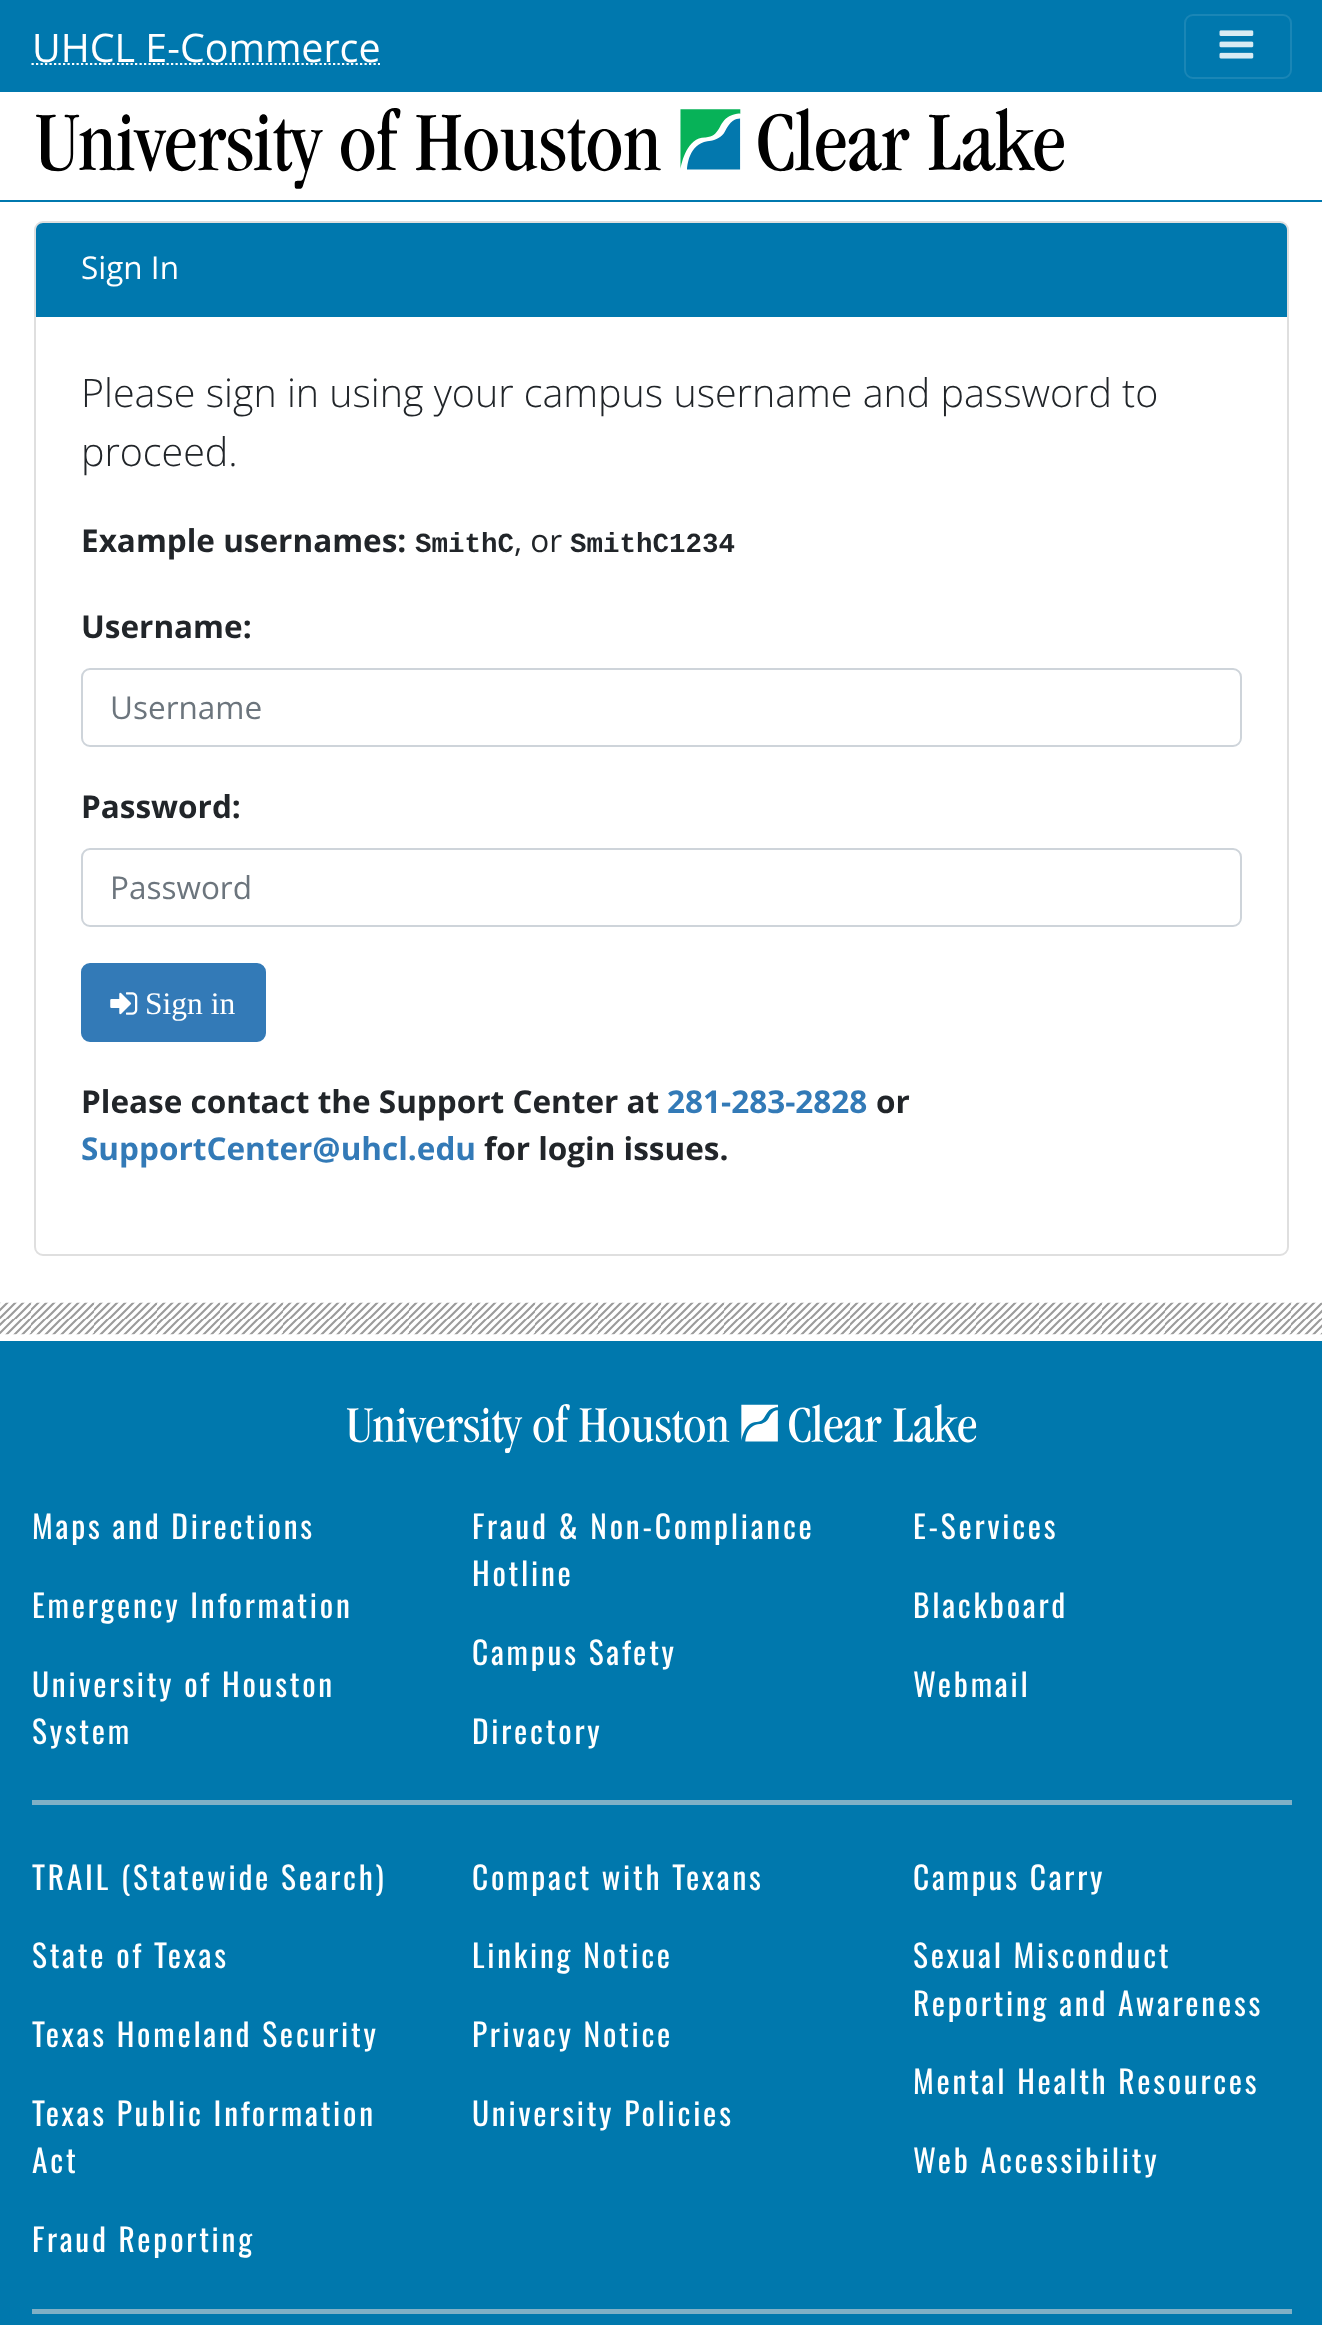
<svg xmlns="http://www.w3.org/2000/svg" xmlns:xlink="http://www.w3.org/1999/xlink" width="1322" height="2325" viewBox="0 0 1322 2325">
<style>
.cls-1{font:39.4px Open Sans;fill:#ffffff}
.cls-2{font:31.5px Open Sans;fill:#ffffff}
.cls-3{font:300 39.4px Open Sans;fill:#212529}
.cls-4{font:bold 31.5px Open Sans;fill:#212529}
.cls-5{font:bold 27.5px Liberation Mono;fill:#212529}
.cls-6{font:31.5px Open Sans;fill:#212529}
.cls-7{font:31.5px Open Sans;fill:#6c757d}
.cls-8{font:31.5px Liberation Serif;fill:#ffffff}
.cls-9{font:bold 31.5px Open Sans;fill:#337ab7}
.cls-10{font:31.5px Oswald;letter-spacing:2.75px;fill:#ffffff}
</style>
<rect width="100%" height="100%" fill="#ffffff"/>
<rect fill="#0078ae" x="0" y="0" width="1322" height="92"/>
<path fill="none" stroke="#ffffff" stroke-width="2.2" stroke-dasharray="2.25 2.25" d="M31.5 64H380"/>
<rect fill="none" stroke="#1a86b6" stroke-width="2" x="1185" y="15" width="106" height="63" rx="8"/>
<image xlink:href="image0.png" x="1219" y="30" width="35" height="29"/>
<image xlink:href="image1.png" x="36" y="108" width="1028" height="81"/>
<rect fill="#0078ae" x="0" y="200" width="1322" height="2"/>
<rect fill="none" stroke="#dfdfdf" stroke-width="2" x="35" y="222" width="1253" height="1033" rx="8"/>
<path fill="#0078ae" d="M43 223H1280C1284 223 1287 226 1287 230V317H36V230C36 226 39 223 43 223Z"/>
<rect fill="none" stroke="#ced4da" stroke-width="2" x="82" y="669" width="1159" height="77" rx="8"/>
<rect fill="none" stroke="#ced4da" stroke-width="2" x="82" y="849" width="1159" height="77" rx="8"/>
<rect fill="#337ab7" stroke="#337ab7" stroke-width="2" x="82" y="964" width="183" height="77" rx="8"/>
<image xlink:href="image2.png" x="110" y="992" width="28" height="23"/>
<image xlink:href="image3.png" x="0" y="1302" width="1322" height="33"/>
<rect fill="#0078ad" x="0" y="1341" width="1322" height="984"/>
<image xlink:href="image4.png" x="346" y="1404" width="631" height="50"/>
<rect fill="#80b0c6" x="32" y="1800" width="1260" height="5"/>
<rect fill="#80b0c6" x="32" y="2309" width="1260" height="5"/>
<text class="cls-1" x="32" y="62">UHCL E-Commerce</text>
<text class="cls-2" x="81" y="279">Sign In</text>
<text class="cls-3"><tspan x="81" y="407">Please sign in using your campus username and password to</tspan><tspan x="81" y="466">proceed.</tspan></text>
<text class="cls-4" x="81" y="552">Example usernames:</text>
<text class="cls-5" x="415" y="552">SmithC</text>
<text class="cls-6" x="514" y="552">, or</text>
<text class="cls-5" x="570" y="552">SmithC1234</text>
<text class="cls-4" x="81" y="638">Username:</text>
<text class="cls-7" x="110" y="719">Username</text>
<text class="cls-4" x="81" y="818">Password:</text>
<text class="cls-7" x="110" y="899">Password</text>
<text class="cls-8" x="145" y="1014">Sign in</text>
<text class="cls-4" x="81" y="1113">Please contact the Support Center at</text>
<text class="cls-9" x="667" y="1113">281-283-2828</text>
<text class="cls-4" x="876" y="1113">or</text>
<text class="cls-9" x="81" y="1160">SupportCenter@uhcl.edu</text>
<text class="cls-4" x="484" y="1160">for login issues.</text>
<text class="cls-10" x="32" y="1539">Maps and Directions</text>
<text class="cls-10" x="32" y="1618">Emergency Information</text>
<text class="cls-10"><tspan x="32" y="1697">University of Houston</tspan><tspan x="32" y="1744">System</tspan></text>
<text class="cls-10"><tspan x="472" y="1539">Fraud &amp; Non-Compliance</tspan><tspan x="472" y="1586">Hotline</tspan></text>
<text class="cls-10" x="472" y="1665">Campus Safety</text>
<text class="cls-10" x="472" y="1744">Directory</text>
<text class="cls-10" x="913" y="1539">E-Services</text>
<text class="cls-10" x="913" y="1618">Blackboard</text>
<text class="cls-10" x="913" y="1697">Webmail</text>
<text class="cls-10" x="32" y="1890">TRAIL (Statewide Search)</text>
<text class="cls-10" x="32" y="1968">State of Texas</text>
<text class="cls-10" x="32" y="2047">Texas Homeland Security</text>
<text class="cls-10"><tspan x="32" y="2126">Texas Public Information</tspan><tspan x="32" y="2173">Act</tspan></text>
<text class="cls-10" x="32" y="2252">Fraud Reporting</text>
<text class="cls-10" x="472" y="1890">Compact with Texans</text>
<text class="cls-10" x="472" y="1968">Linking Notice</text>
<text class="cls-10" x="472" y="2047">Privacy Notice</text>
<text class="cls-10" x="472" y="2126">University Policies</text>
<text class="cls-10" x="913" y="1890">Campus Carry</text>
<text class="cls-10"><tspan x="913" y="1968">Sexual Misconduct</tspan><tspan x="913" y="2016">Reporting and Awareness</tspan></text>
<text class="cls-10" x="913" y="2094">Mental Health Resources</text>
<text class="cls-10" x="913" y="2173">Web Accessibility</text>
</svg>
